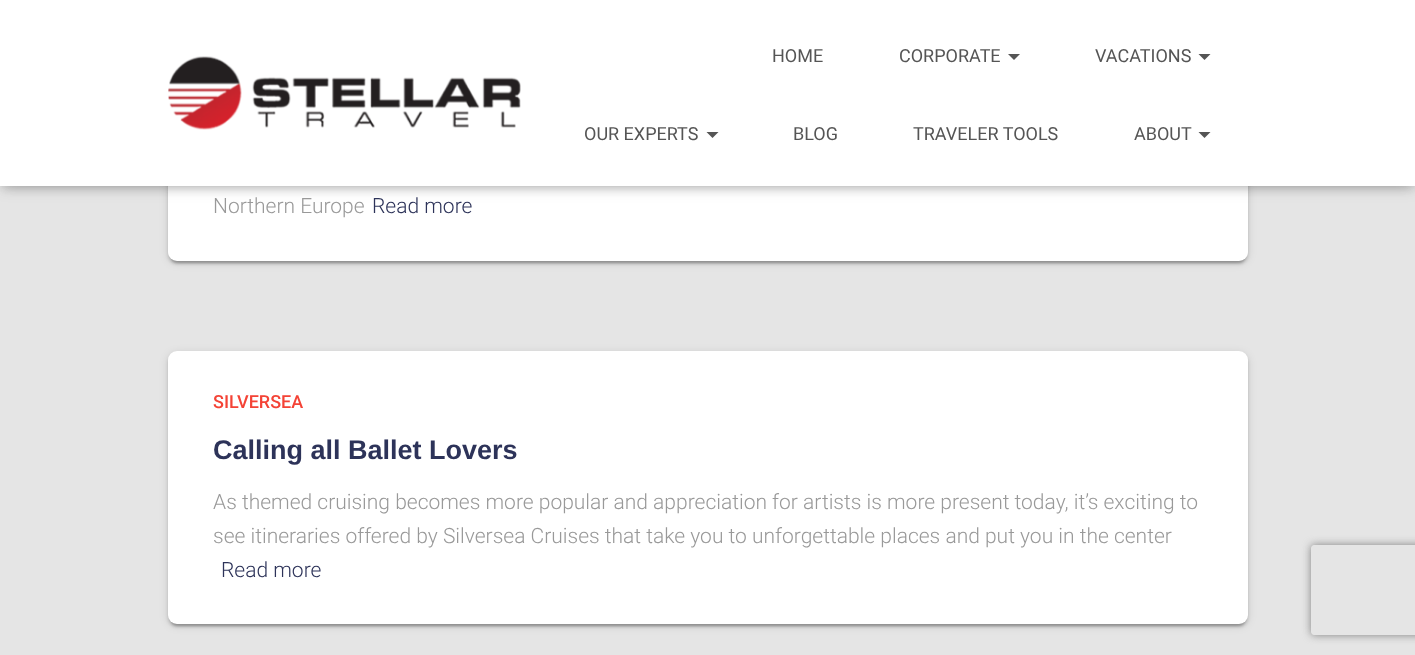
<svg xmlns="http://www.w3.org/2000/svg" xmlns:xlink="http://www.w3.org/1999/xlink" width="1415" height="655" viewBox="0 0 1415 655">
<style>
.cls-1{font:18px Roboto;fill:#555555}
.cls-2{font:300 21px Roboto;fill:#999999}
.cls-3{font:300 21px Roboto;fill:#2d3359}
.cls-4{font:500 18px Roboto;fill:#f44336}
.cls-5{font:bold 27px Liberation Sans;fill:#2d3359}
</style>
<defs>
<clipPath id="clip1"><path d="M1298 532H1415V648H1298ZM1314 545H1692C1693.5 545 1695 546.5 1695 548V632C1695 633.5 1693.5 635 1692 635H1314C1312.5 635 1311 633.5 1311 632V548C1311 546.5 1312.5 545 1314 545Z" clip-rule="evenodd"/></clipPath>
</defs>
<rect width="100%" height="100%" fill="#e5e5e5"/>
<rect fill="#000000" fill-opacity="0.12" filter="blur(4px)" x="168" y="-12" width="1080" height="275" rx="9"/>
<rect fill="#000000" fill-opacity="0.2" filter="blur(1px)" x="171" y="-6" width="1074" height="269" rx="6"/>
<rect fill="#000000" fill-opacity="0.14" filter="blur(1.5px)" x="168" y="-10" width="1080" height="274" rx="9"/>
<rect fill="#ffffff" x="168" y="-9" width="1080" height="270" rx="9"/>
<rect fill="#000000" fill-opacity="0.1" filter="blur(4px)" x="3" y="9" width="1410" height="180"/>
<rect fill="#000000" fill-opacity="0.12" filter="blur(7.5px)" x="0" y="2" width="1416" height="186"/>
<rect fill="#000000" fill-opacity="0.42" filter="blur(7.5px)" x="9" y="11" width="1398" height="168"/>
<rect fill="#ffffff" x="0" y="0" width="1415" height="186"/>
<image xlink:href="image0.png" x="168" y="56" width="353" height="74"/>
<path fill="#555555" d="M1008 54H1020L1014 60Z"/>
<path fill="#555555" d="M1198.5 54H1210.5L1204.5 60Z"/>
<path fill="#555555" d="M706.5 132H718.5L712.5 138Z"/>
<path fill="#555555" d="M1198.5 132H1210.5L1204.5 138Z"/>
<rect fill="#000000" fill-opacity="0.12" filter="blur(4px)" x="168" y="353" width="1080" height="273" rx="9"/>
<rect fill="#000000" fill-opacity="0.2" filter="blur(1px)" x="171" y="359" width="1074" height="267" rx="6"/>
<rect fill="#000000" fill-opacity="0.14" filter="blur(1.5px)" x="168" y="354" width="1080" height="273" rx="9"/>
<rect fill="#ffffff" x="168" y="351" width="1080" height="273" rx="9"/>
<g clip-path="url(#clip1)">
<rect fill="#808080" filter="blur(4px)" x="1311" y="545" width="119" height="90" rx="3"/>
</g>
<text class="cls-1" x="772" y="62">HOME</text>
<text class="cls-1" x="899" y="62">CORPORATE</text>
<text class="cls-1" x="1095" y="62">VACATIONS</text>
<text class="cls-1" x="584" y="140">OUR EXPERTS</text>
<text class="cls-1" x="793" y="140">BLOG</text>
<text class="cls-1" x="913" y="140">TRAVELER TOOLS</text>
<text class="cls-1" x="1134" y="140">ABOUT</text>
<text class="cls-2" x="213" y="213">Northern Europe</text>
<text class="cls-3" x="372" y="213">Read more</text>
<text class="cls-4" x="213" y="408">SILVERSEA</text>
<text class="cls-5" x="213" y="459">Calling all Ballet Lovers</text>
<text class="cls-2"><tspan x="213" y="509">As themed cruising becomes more popular and appreciation for artists is more present today, it’s exciting to</tspan><tspan x="213" y="543">see itineraries offered by Silversea Cruises that take you to unforgettable places and put you in the center</tspan></text>
<text class="cls-3" x="221" y="577">Read more</text>
</svg>
